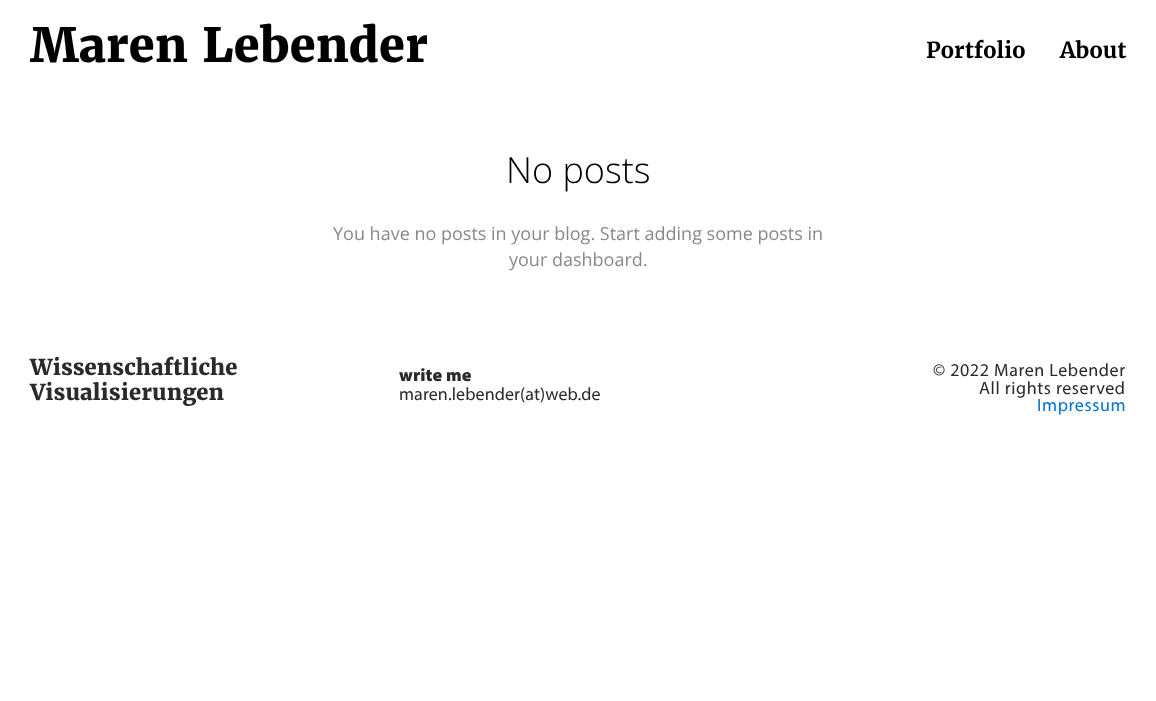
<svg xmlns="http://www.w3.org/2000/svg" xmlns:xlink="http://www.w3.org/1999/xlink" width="1156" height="701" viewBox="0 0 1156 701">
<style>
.cls-1{font:800 47px Merriweather;fill:#000000}
.cls-2{font:bold 22px Merriweather;letter-spacing:0.1px;fill:#000000}
.cls-3{font:300 36px Open Sans;fill:#000000}
.cls-4{font:18px Open Sans;fill:#888888}
.cls-5{font:800 22px Merriweather;letter-spacing:0.1px;fill:#292a2c}
.cls-6{font:900 18px Myriad;letter-spacing:0.1px;fill:#292a2c}
.cls-7{font:18px Myriad;letter-spacing:0.1px;fill:#292a2c}
.cls-8{font:18px Myriad;letter-spacing:0.6px;fill:#292a2c}
.cls-9{font:18px Myriad;letter-spacing:0.6px;fill:#0071db}
</style>
<rect width="100%" height="100%" fill="#ffffff"/>
<text class="cls-1" x="30" y="62">Maren Lebender</text>
<text class="cls-2" x="926" y="58">Portfolio</text>
<text class="cls-2" x="1060" y="58">About</text>
<text class="cls-3" x="506" y="183">No posts</text>
<text class="cls-4" x="333" y="240">You have no posts in your blog. Start adding some posts in</text>
<text class="cls-4" x="509" y="266">your dashboard.</text>
<text class="cls-5"><tspan x="30" y="375">Wissenschaftliche</tspan><tspan x="30" y="400">Visualisierungen</tspan></text>
<text class="cls-6" x="399" y="381">write me</text>
<text class="cls-7" x="399" y="400">maren.lebender(at)web.de</text>
<text class="cls-8" x="933" y="376">© 2022 Maren Lebender</text>
<text class="cls-8" x="979" y="394">All rights reserved</text>
<text class="cls-9" x="1037" y="411">Impressum</text>
</svg>
